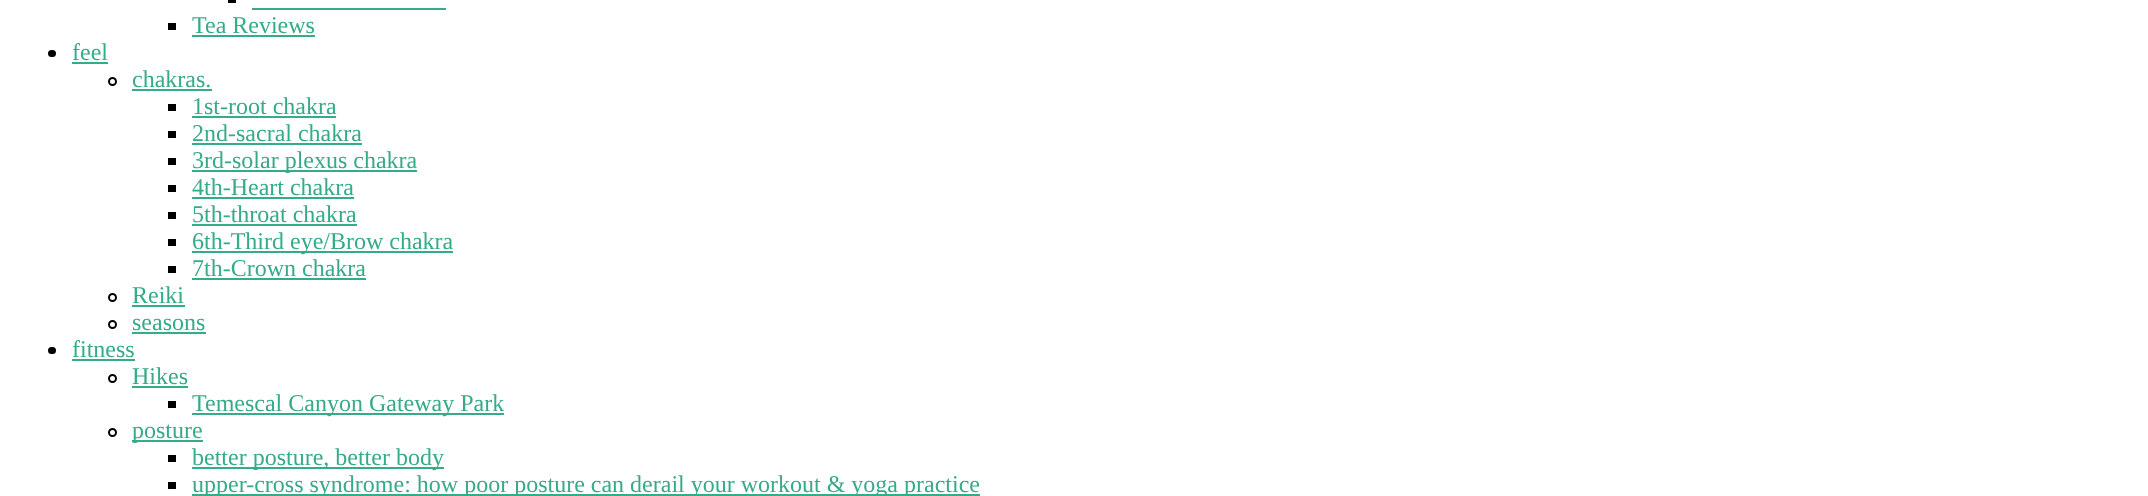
<svg xmlns="http://www.w3.org/2000/svg" xmlns:xlink="http://www.w3.org/1999/xlink" width="2148" height="496" viewBox="0 0 2148 496">
<style>
.cls-1{font:24px Liberation Serif;fill:#36ab8a}
</style>
<rect width="100%" height="100%" fill="#ffffff"/>
<rect fill="#000000" x="228" y="0" width="8" height="3"/>
<rect fill="#36ab8a" x="252" y="8" width="194" height="2"/>
<rect fill="#000000" x="168" y="23" width="8" height="7"/>
<rect fill="#36ab8a" x="192" y="35" width="123" height="2"/>
<rect fill="#000000" x="48" y="50" width="8" height="7" rx="3.5"/>
<rect fill="#36ab8a" x="72" y="62" width="36" height="2"/>
<circle fill="none" stroke="#000000" stroke-width="2" cx="112.5" cy="81.5" r="3.5"/>
<rect fill="#36ab8a" x="132" y="89" width="80" height="2"/>
<rect fill="#000000" x="168" y="104" width="8" height="7"/>
<rect fill="#36ab8a" x="192" y="116" width="144" height="2"/>
<rect fill="#000000" x="168" y="131" width="8" height="7"/>
<rect fill="#36ab8a" x="192" y="143" width="170" height="2"/>
<rect fill="#000000" x="168" y="158" width="8" height="7"/>
<rect fill="#36ab8a" x="192" y="170" width="225" height="2"/>
<rect fill="#000000" x="168" y="185" width="8" height="7"/>
<rect fill="#36ab8a" x="192" y="197" width="162" height="2"/>
<rect fill="#000000" x="168" y="212" width="8" height="7"/>
<rect fill="#36ab8a" x="192" y="224" width="165" height="2"/>
<rect fill="#000000" x="168" y="239" width="8" height="7"/>
<rect fill="#36ab8a" x="192" y="251" width="261" height="2"/>
<rect fill="#000000" x="168" y="266" width="8" height="7"/>
<rect fill="#36ab8a" x="192" y="278" width="174" height="2"/>
<circle fill="none" stroke="#000000" stroke-width="2" cx="112.5" cy="297.5" r="3.5"/>
<rect fill="#36ab8a" x="132" y="305" width="53" height="2"/>
<circle fill="none" stroke="#000000" stroke-width="2" cx="112.5" cy="324.5" r="3.5"/>
<rect fill="#36ab8a" x="132" y="332" width="74" height="2"/>
<rect fill="#000000" x="48" y="347" width="8" height="7" rx="3.5"/>
<rect fill="#36ab8a" x="72" y="359" width="63" height="2"/>
<circle fill="none" stroke="#000000" stroke-width="2" cx="112.5" cy="378.5" r="3.5"/>
<rect fill="#36ab8a" x="132" y="386" width="56" height="2"/>
<rect fill="#000000" x="168" y="401" width="8" height="7"/>
<rect fill="#36ab8a" x="192" y="413" width="312" height="2"/>
<circle fill="none" stroke="#000000" stroke-width="2" cx="112.5" cy="432.5" r="3.5"/>
<rect fill="#36ab8a" x="132" y="440" width="71" height="2"/>
<rect fill="#000000" x="168" y="455" width="8" height="7"/>
<rect fill="#36ab8a" x="192" y="467" width="252" height="2"/>
<rect fill="#000000" x="168" y="482" width="8" height="7"/>
<rect fill="#36ab8a" x="192" y="494" width="788" height="2"/>
<text class="cls-1" x="192" y="33">Tea Reviews</text>
<text class="cls-1" x="72" y="60">feel</text>
<text class="cls-1" x="132" y="87">chakras.</text>
<text class="cls-1"><tspan x="192" y="114">1st-root chakra</tspan><tspan x="192" y="141">2nd-sacral chakra</tspan><tspan x="192" y="168">3rd-solar plexus chakra</tspan><tspan x="192" y="195">4th-Heart chakra</tspan><tspan x="192" y="222">5th-throat chakra</tspan><tspan x="192" y="249">6th-Third eye/Brow chakra</tspan><tspan x="192" y="276">7th-Crown chakra</tspan></text>
<text class="cls-1"><tspan x="132" y="303">Reiki</tspan><tspan x="132" y="330">seasons</tspan></text>
<text class="cls-1" x="72" y="357">fitness</text>
<text class="cls-1" x="132" y="384">Hikes</text>
<text class="cls-1" x="192" y="411">Temescal Canyon Gateway Park</text>
<text class="cls-1" x="132" y="438">posture</text>
<text class="cls-1"><tspan x="192" y="465">better posture, better body</tspan><tspan x="192" y="492">upper-cross syndrome: how poor posture can derail your workout &amp; yoga practice</tspan></text>
</svg>
